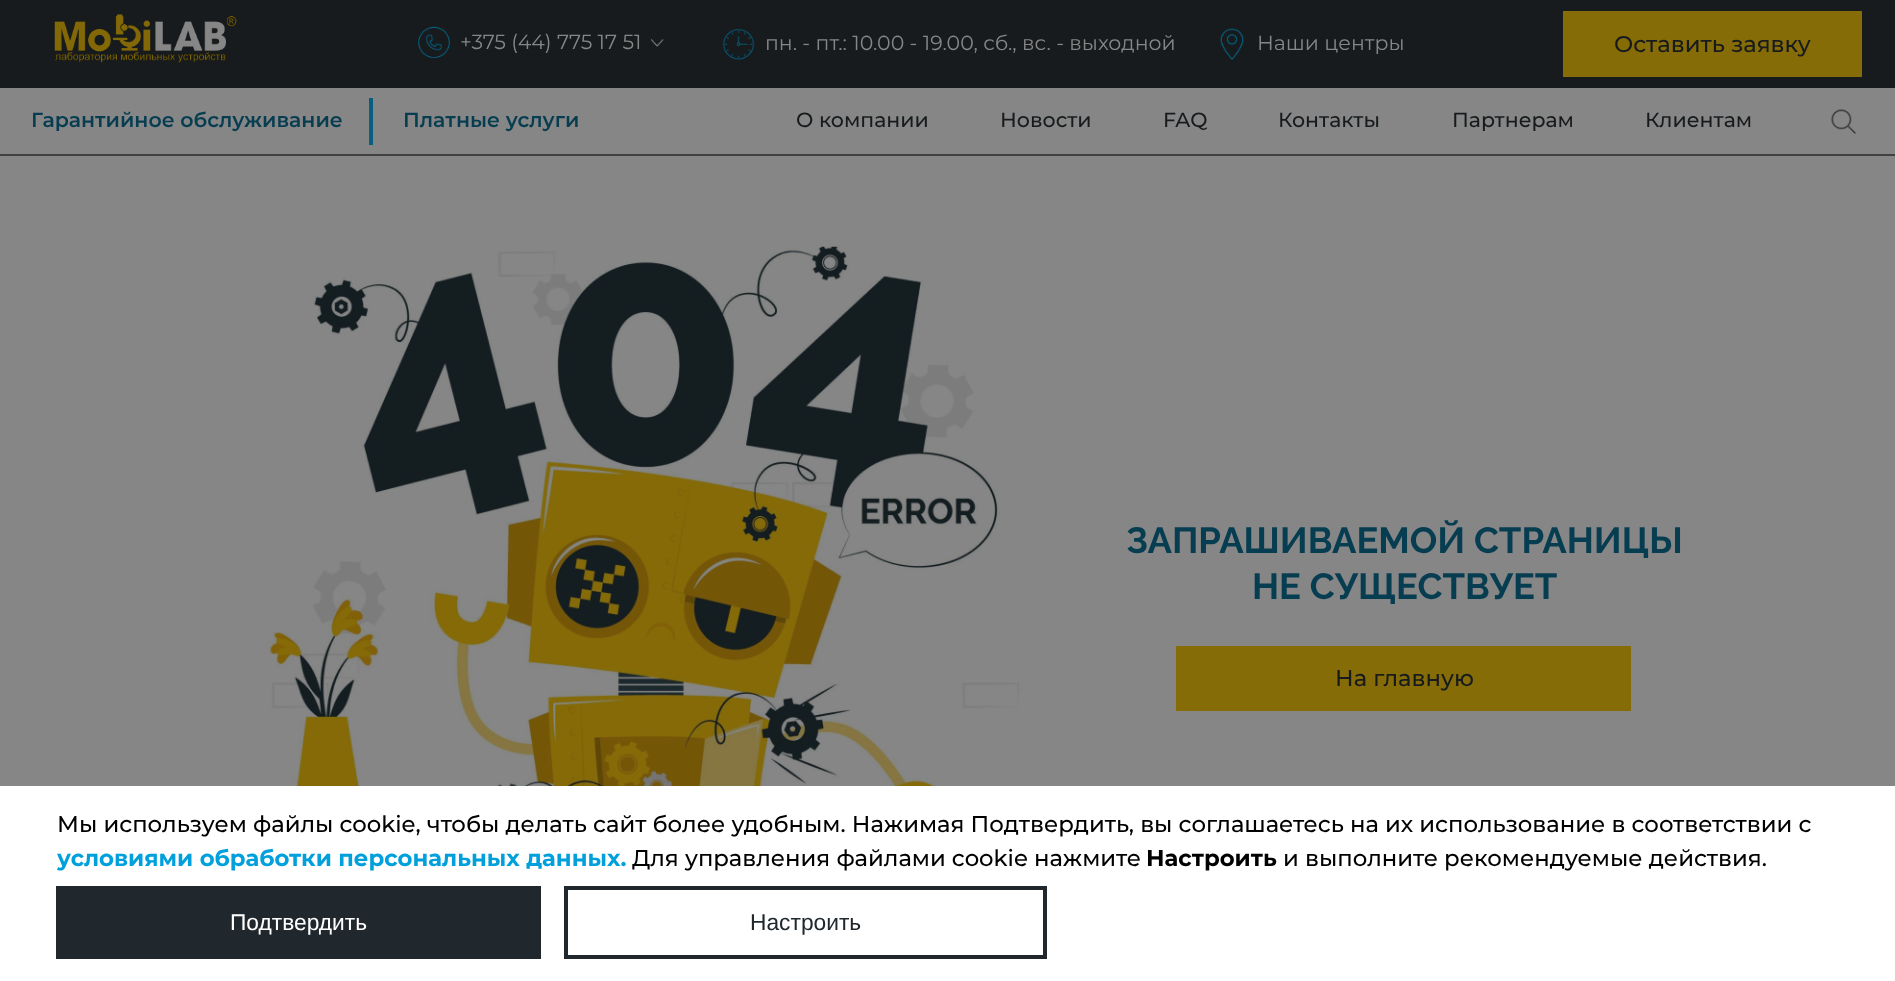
<svg xmlns="http://www.w3.org/2000/svg" xmlns:xlink="http://www.w3.org/1999/xlink" width="1895" height="981" viewBox="0 0 1895 981">
<style>
.cls-1{font:20.5px Montserrat;fill:#868686}
.cls-2{font:500 22.75px Montserrat;fill:#171b1d}
.cls-3{font:600 20.5px Montserrat;fill:#073d51}
.cls-4{font:500 20.5px Montserrat;fill:#171b1d}
.cls-5{font:bold 36.4px Raleway;fill:#073d51}
.cls-6{font:500 22.75px Montserrat;fill:#000000}
.cls-7{font:bold 22.75px Montserrat;fill:#00a0dc}
.cls-8{font:bold 22.75px Montserrat;fill:#000000}
.cls-9{font:22.75px Liberation Sans;fill:#ffffff}
.cls-10{font:22.75px Liberation Sans;fill:#20282d}
</style>
<rect width="100%" height="100%" fill="#868686"/>
<rect fill="#171b1d" x="0" y="0" width="1895" height="88"/>
<image xlink:href="image0.png" x="54" y="14" width="183" height="49"/>
<image xlink:href="image1.png" x="418" y="26" width="32" height="32"/>
<image xlink:href="image2.png" x="651" y="39" width="13" height="8"/>
<image xlink:href="image3.png" x="722" y="28" width="33" height="32"/>
<image xlink:href="image4.png" x="1220" y="28" width="24" height="32"/>
<rect fill="#866c07" x="1563" y="11" width="299" height="66"/>
<rect fill="#414141" x="0" y="154" width="1895" height="2"/>
<rect fill="#075f7f" x="369" y="98" width="4" height="47"/>
<image xlink:href="image5.png" x="1831" y="109" width="25" height="25"/>
<image xlink:href="image6.png" x="267" y="246" width="757" height="540"/>
<rect fill="#866c07" x="1176" y="646" width="455" height="65"/>
<rect fill="#ffffff" x="0" y="786" width="1895" height="195"/>
<rect fill="#20282d" x="56" y="886" width="485" height="73"/>
<rect fill="none" stroke="#20282d" stroke-width="4" x="566" y="888" width="479" height="69"/>
<text class="cls-1" x="460" y="49">+375 (44) 775 17 51</text>
<text class="cls-1" x="765" y="50">пн. - пт.: 10.00 - 19.00, сб., вс. - выходной</text>
<text class="cls-1" x="1257" y="50">Наши центры</text>
<text class="cls-2" x="1614" y="52">Оставить заявку</text>
<text class="cls-3" x="31" y="127">Гарантийное обслуживание</text>
<text class="cls-3" x="403" y="127">Платные услуги</text>
<text class="cls-4" x="796" y="127">О компании</text>
<text class="cls-4" x="1000" y="127">Новости</text>
<text class="cls-4" x="1163" y="127">FAQ</text>
<text class="cls-4" x="1278" y="127">Контакты</text>
<text class="cls-4" x="1452" y="127">Партнерам</text>
<text class="cls-4" x="1645" y="127">Клиентам</text>
<text class="cls-5" x="1126" y="553">ЗАПРАШИВАЕМОЙ СТРАНИЦЫ</text>
<text class="cls-5" x="1252" y="599">НЕ СУЩЕСТВУЕТ</text>
<text class="cls-2" x="1335" y="686">На главную</text>
<text class="cls-6" x="57" y="832">Мы используем файлы cookie, чтобы делать сайт более удобным. Нажимая Подтвердить, вы соглашаетесь на их использование в соответствии с</text>
<text class="cls-7" x="57" y="866">условиями обработки персональных данных.</text>
<text class="cls-6" x="632" y="866">Для управления файлами cookie нажмите</text>
<text class="cls-8" x="1146" y="866">Настроить</text>
<text class="cls-6" x="1283" y="866">и выполните рекомендуемые действия.</text>
<text class="cls-9" x="230" y="930">Подтвердить</text>
<text class="cls-10" x="750" y="930">Настроить</text>
</svg>
